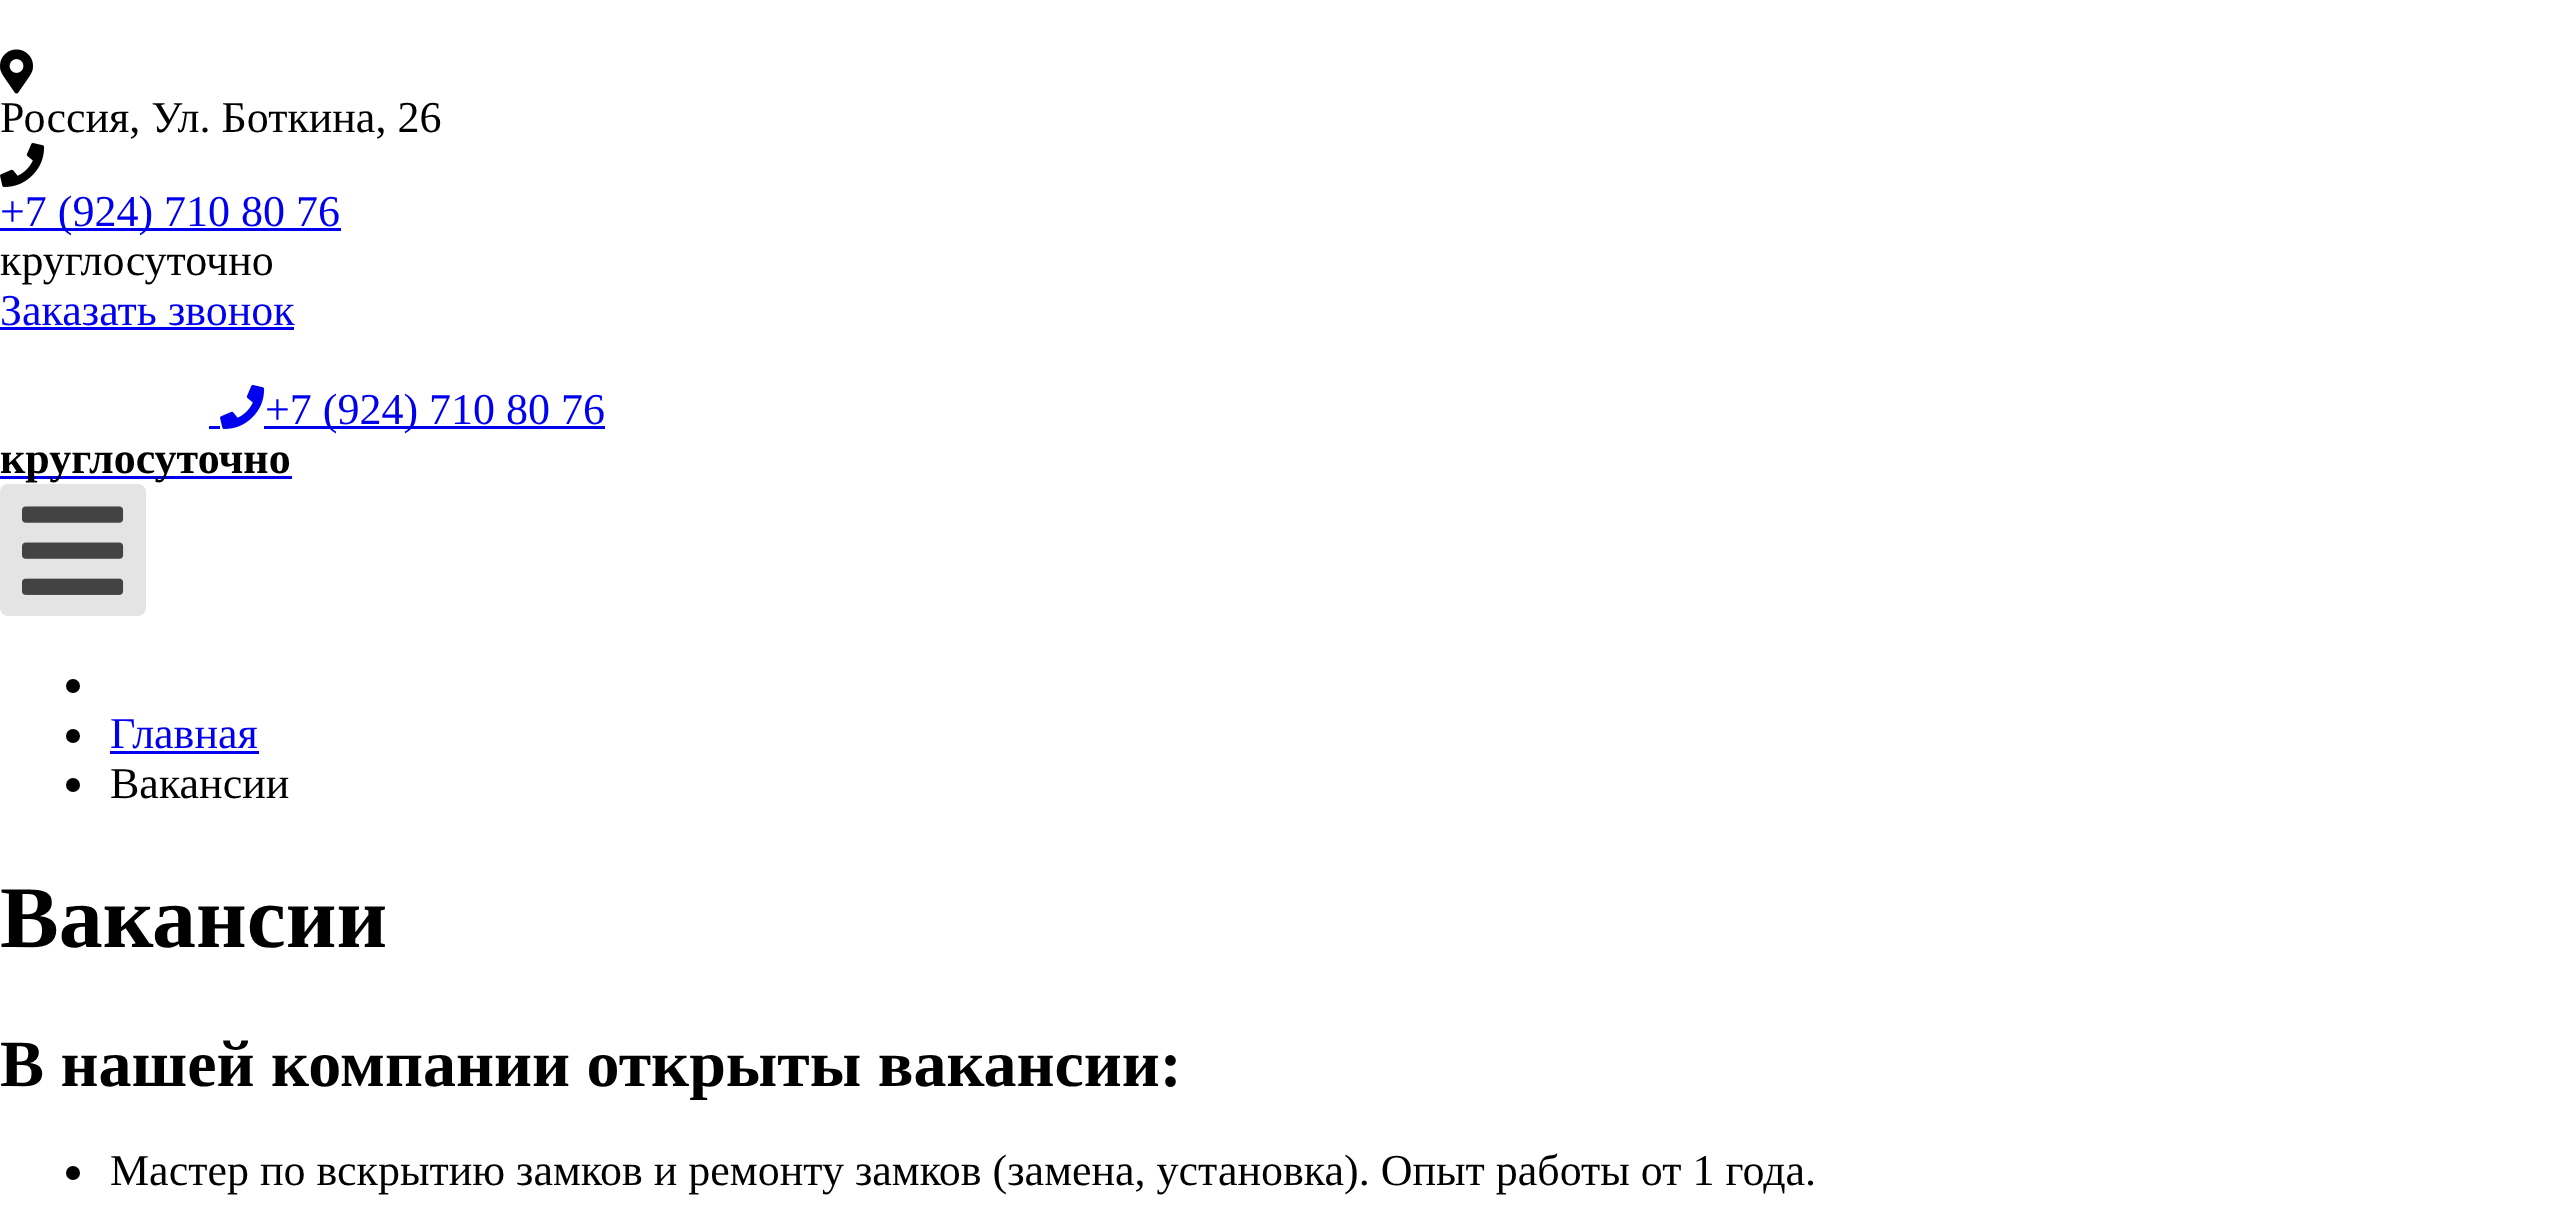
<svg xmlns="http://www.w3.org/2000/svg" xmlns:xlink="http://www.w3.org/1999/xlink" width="2558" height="1215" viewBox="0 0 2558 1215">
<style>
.cls-1{font:44px Liberation Serif;fill:#000000}
.cls-2{font:44px Liberation Serif;fill:#0000ee}
.cls-3{font:bold 44px Liberation Serif;fill:#000000}
.cls-4{font:bold 88px Liberation Serif;fill:#000000}
.cls-5{font:bold 66px Liberation Serif;fill:#000000}
</style>
<rect width="100%" height="100%" fill="#ffffff"/>
<image xlink:href="image0.png" x="0" y="49" width="33" height="45"/>
<image xlink:href="image1.png" x="0" y="143" width="45" height="44"/>
<rect fill="#0000ee" x="0" y="228" width="341" height="3"/>
<rect fill="#0000ee" x="0" y="327" width="294" height="3"/>
<image xlink:href="image2.png" x="220" y="385" width="45" height="44"/>
<rect fill="#0000ee" x="264" y="426" width="341" height="3"/>
<rect fill="#0000ee" x="0" y="476" width="292" height="3"/>
<rect fill="#0000ee" x="209" y="426" width="11" height="3"/>
<rect fill="#e4e4e4" x="0" y="484" width="146" height="132" rx="8"/>
<image xlink:href="image3.png" x="22" y="506" width="102" height="89"/>
<circle fill="#000000" cx="73" cy="686" r="7"/>
<circle fill="#000000" cx="73" cy="736" r="7"/>
<rect fill="#0000ee" x="110" y="751" width="149" height="3"/>
<circle fill="#000000" cx="73" cy="785" r="7"/>
<circle fill="#000000" cx="73" cy="1173" r="7"/>
<text class="cls-1" x="0" y="132">Россия, Ул. Боткина, 26</text>
<text class="cls-2" x="0" y="226">+7 (924) 710 80 76</text>
<text class="cls-1" x="0" y="275">круглосуточно</text>
<text class="cls-2" x="0" y="325">Заказать звонок</text>
<text class="cls-2" x="265" y="424">+7 (924) 710 80 76</text>
<text class="cls-3" x="0" y="473">круглосуточно</text>
<text class="cls-2" x="110" y="748">Главная</text>
<text class="cls-1" x="110" y="798">Вакансии</text>
<text class="cls-4" x="0" y="947">Вакансии</text>
<text class="cls-5" x="0" y="1086">В нашей компании открыты вакансии:</text>
<text class="cls-1" x="110" y="1185">Мастер по вскрытию замков и ремонту замков (замена, установка). Опыт работы от 1 года.</text>
</svg>
